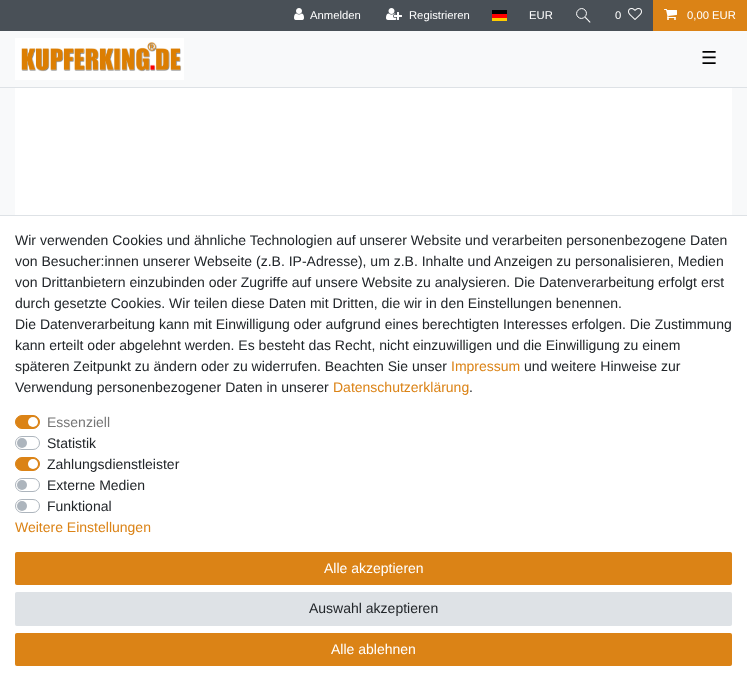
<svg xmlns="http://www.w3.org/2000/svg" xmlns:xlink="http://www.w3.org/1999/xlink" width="747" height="687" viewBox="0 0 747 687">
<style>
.cls-1{font:11.25px Liberation Sans;fill:#ffffff}
.cls-2{font:18px DejaVu Sans;fill:#000000}
.cls-3{font:14px Liberation Sans;fill:#212529}
.cls-4{font:14px Liberation Sans;fill:#db8316}
.cls-5{font:14px Liberation Sans;fill:#767676}
.cls-6{font:14px Liberation Sans;fill:#ffffff}
</style>
<rect width="100%" height="100%" fill="#f8f9fa"/>
<rect fill="#495057" x="0" y="0" width="653" height="31"/>
<image xlink:href="image0.png" x="294" y="8" width="10" height="12"/>
<image xlink:href="image1.png" x="386" y="8" width="16" height="12"/>
<rect fill="#ffcc00" x="492" y="18" width="15" height="3"/>
<rect fill="#000000" x="492" y="10" width="15" height="4"/>
<rect fill="#ff0000" x="492" y="14" width="15" height="4"/>
<path fill="#ffffff" d="M589.5 22.5C588.5 21 579.5 12.5 579.5 12L580.5 11.5L590.5 22C590.5 22.5 590 22.5 589.5 22.5Z"/>
<path fill="#495057" d="M577.5 17.5C572.5 12.5 580.5 4.5 585.5 9.5C590.5 14.5 582.5 22.5 577.5 17.5Z"/>
<path fill="none" stroke="#ffffff" d="M578 17C573.5 12.5 580.5 5.5 585 10C589.5 14.5 582.5 21.5 578 17Z"/>
<image xlink:href="image2.png" x="628" y="8" width="14" height="12"/>
<rect fill="#db8316" x="653" y="0" width="94" height="31"/>
<image xlink:href="image3.png" x="664" y="9" width="13" height="11"/>
<rect fill="#dee2e6" x="0" y="87" width="747" height="1"/>
<image xlink:href="image4.png" x="15" y="38" width="169" height="42"/>
<rect fill="#ffffff" x="15" y="88" width="717" height="127"/>
<rect fill="#ffffff" x="0" y="216" width="747" height="471"/>
<rect fill="#dee2e6" x="0" y="215" width="747" height="1"/>
<rect fill="#db8316" stroke="#db8316" x="15.5" y="415.5" width="24" height="13" rx="6.5"/>
<circle fill="#ffffff" cx="33" cy="422" r="5"/>
<rect fill="none" stroke="#adb5bd" x="15.5" y="436.5" width="24" height="13" rx="6.5"/>
<circle fill="#adb5bd" cx="22" cy="443" r="5"/>
<rect fill="#db8316" stroke="#db8316" x="15.5" y="457.5" width="24" height="13" rx="6.5"/>
<circle fill="#ffffff" cx="33" cy="464" r="5"/>
<rect fill="none" stroke="#adb5bd" x="15.5" y="478.5" width="24" height="13" rx="6.5"/>
<circle fill="#adb5bd" cx="22" cy="485" r="5"/>
<rect fill="none" stroke="#adb5bd" x="15.5" y="499.5" width="24" height="13" rx="6.5"/>
<circle fill="#adb5bd" cx="22" cy="506" r="5"/>
<rect fill="#db8316" stroke="#db8316" x="15.5" y="552.5" width="716" height="32" rx="1"/>
<rect fill="#dee2e6" stroke="#dee2e6" x="15.5" y="592.5" width="716" height="33" rx="1"/>
<rect fill="#db8316" stroke="#db8316" x="15.5" y="633.5" width="716" height="32" rx="1"/>
<text class="cls-1" x="310" y="19">Anmelden</text>
<text class="cls-1" x="409" y="19">Registrieren</text>
<text class="cls-1" x="529" y="19">EUR</text>
<text class="cls-1" x="615" y="19">0</text>
<text class="cls-1" x="687" y="19">0,00 EUR</text>
<text class="cls-2" x="701" y="64">☰</text>
<text class="cls-3"><tspan x="15" y="245">Wir verwenden Cookies und ähnliche Technologien auf unserer Website und verarbeiten personenbezogene Daten</tspan><tspan x="15" y="266">von Besucher:innen unserer Webseite (z.B. IP-Adresse), um z.B. Inhalte und Anzeigen zu personalisieren, Medien</tspan><tspan x="15" y="287">von Drittanbietern einzubinden oder Zugriffe auf unsere Website zu analysieren. Die Datenverarbeitung erfolgt erst</tspan><tspan x="15" y="308">durch gesetzte Cookies. Wir teilen diese Daten mit Dritten, die wir in den Einstellungen benennen.</tspan><tspan x="15" y="329">Die Datenverarbeitung kann mit Einwilligung oder aufgrund eines berechtigten Interesses erfolgen. Die Zustimmung</tspan><tspan x="15" y="350">kann erteilt oder abgelehnt werden. Es besteht das Recht, nicht einzuwilligen und die Einwilligung zu einem</tspan><tspan x="15" y="371">späteren Zeitpunkt zu ändern oder zu widerrufen. Beachten Sie unser</tspan></text>
<text class="cls-4" x="451" y="371">Impressum</text>
<text class="cls-3" x="524" y="371">und weitere Hinweise zur</text>
<text class="cls-3" x="15" y="392">Verwendung personenbezogener Daten in unserer</text>
<text class="cls-4" x="333" y="392">Datenschutzerklärung</text>
<text class="cls-3" x="469" y="392">.</text>
<text class="cls-5" x="47" y="427">Essenziell</text>
<text class="cls-3"><tspan x="47" y="448">Statistik</tspan><tspan x="47" y="469">Zahlungsdienstleister</tspan><tspan x="47" y="490">Externe Medien</tspan><tspan x="47" y="511">Funktional</tspan></text>
<text class="cls-4" x="15" y="532">Weitere Einstellungen</text>
<text class="cls-6" x="324" y="573">Alle akzeptieren</text>
<text class="cls-3" x="309" y="613">Auswahl akzeptieren</text>
<text class="cls-6" x="331" y="654">Alle ablehnen</text>
</svg>
